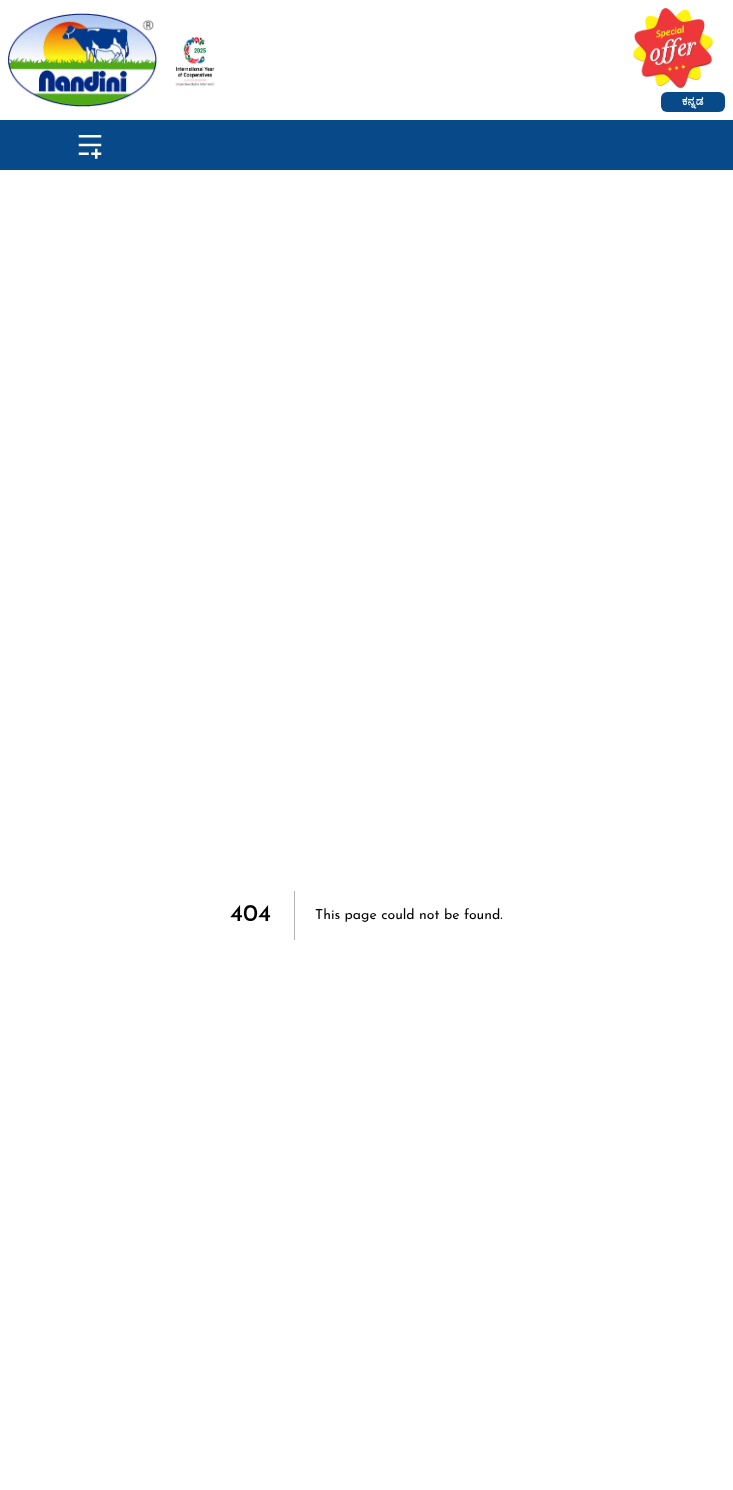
<svg xmlns="http://www.w3.org/2000/svg" xmlns:xlink="http://www.w3.org/1999/xlink" width="733" height="1490" viewBox="0 0 733 1490">
<style>
.cls-1{font:bold 12px FreeSerif;fill:#ffffff}
.cls-2{font:500 24px Josefin Sans;fill:#000000}
.cls-3{font:14px Josefin Sans;fill:#000000}
</style>
<rect width="100%" height="100%" fill="#ffffff"/>
<image xlink:href="image0.png" x="633" y="8" width="80" height="81"/>
<image xlink:href="image1.png" x="8" y="13" width="150" height="94"/>
<image xlink:href="image2.png" x="175" y="36" width="40" height="51"/>
<rect fill="#074989" x="661" y="92" width="64" height="20" rx="6"/>
<rect fill="#074989" x="0" y="120" width="733" height="50"/>
<image xlink:href="image3.png" x="78" y="135" width="24" height="24"/>
<rect fill="#b3b3b3" x="294" y="891" width="1" height="49"/>
<text class="cls-1" x="682" y="105">ಕನ್ನಡ</text>
<text class="cls-2" x="230" y="921">404</text>
<text class="cls-3" x="315" y="919">This page could not be found.</text>
</svg>
